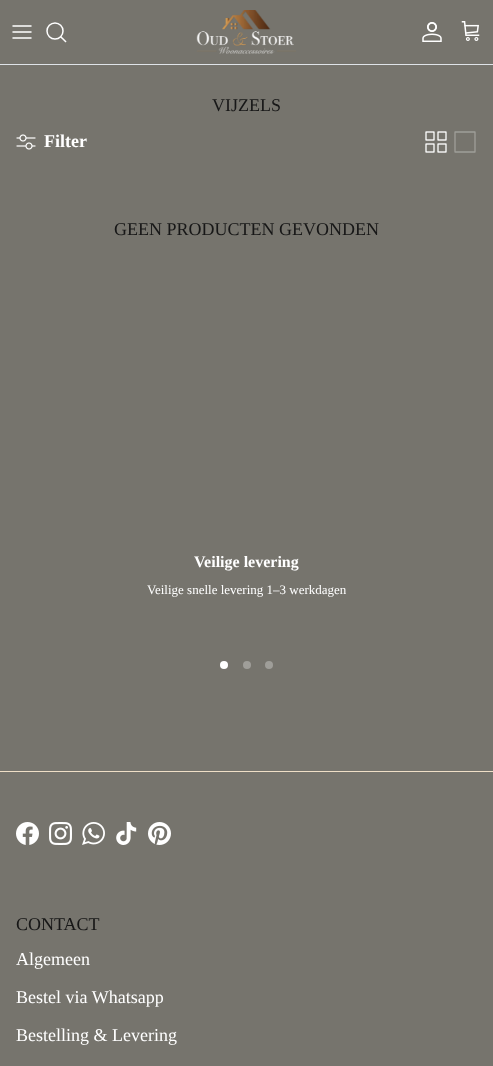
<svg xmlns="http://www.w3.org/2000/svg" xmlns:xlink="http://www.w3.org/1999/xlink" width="493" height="1066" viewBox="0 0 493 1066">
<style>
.cls-1{font:18px Liberation Serif;fill:#171717}
.cls-2{font:bold 18px Liberation Serif;fill:#ffffff}
.cls-3{font:bold 16px Liberation Serif;fill:#ffffff}
.cls-4{font:13px Liberation Serif;fill:#ffffff}
.cls-5{font:18px Liberation Serif;fill:#ffffff}
</style>
<rect width="100%" height="100%" fill="#76746d"/>
<rect fill="#dfe3e8" x="0" y="64" width="493" height="1"/>
<path fill="none" stroke="#ffffff" stroke-width="1.5" stroke-linecap="round" stroke-linejoin="round" d="M13 32H31M13 26H31M13 38H31"/>
<circle fill="none" stroke="#ffffff" stroke-width="1.5" cx="55" cy="31" r="8"/>
<path fill="none" stroke="#ffffff" stroke-width="1.5" stroke-linecap="square" d="M61 37L65.5 41.5"/>
<image xlink:href="image0.png" x="196" y="10" width="100" height="44"/>
<image xlink:href="image1.png" x="422" y="22" width="20" height="20"/>
<image xlink:href="image2.png" x="461" y="21" width="19" height="20"/>
<image xlink:href="image3.png" x="16" y="134" width="20" height="16"/>
<image xlink:href="image4.png" x="425" y="131" width="22" height="22"/>
<path fill="none" stroke="#9f9e99" stroke-width="1.3" stroke-linecap="round" stroke-linejoin="round" d="M455 132H475V152H455V132"/>
<circle fill="#ffffff" cx="224" cy="665" r="4"/>
<circle fill="#9f9e99" cx="247" cy="665" r="4"/>
<circle fill="#9f9e99" cx="269" cy="665" r="4"/>
<rect fill="#efdfc7" x="0" y="771" width="493" height="1"/>
<image xlink:href="image5.png" x="16" y="822" width="23" height="23"/>
<image xlink:href="image6.png" x="49" y="822" width="23" height="23"/>
<image xlink:href="image7.png" x="82" y="822" width="23" height="23"/>
<image xlink:href="image8.png" x="116" y="822" width="21" height="23"/>
<image xlink:href="image9.png" x="148" y="822" width="23" height="23"/>
<text class="cls-1" x="212" y="111">VIJZELS</text>
<text class="cls-2" x="44" y="147">Filter</text>
<text class="cls-1" x="114" y="235">GEEN PRODUCTEN GEVONDEN</text>
<text class="cls-3" x="194" y="567">Veilige levering</text>
<text class="cls-4" x="147" y="594">Veilige snelle levering 1–3 werkdagen</text>
<text class="cls-1" x="16" y="930">CONTACT</text>
<text class="cls-5" x="16" y="965">Algemeen</text>
<text class="cls-5" x="16" y="1003">Bestel via Whatsapp</text>
<text class="cls-5" x="16" y="1041">Bestelling &amp; Levering</text>
</svg>
